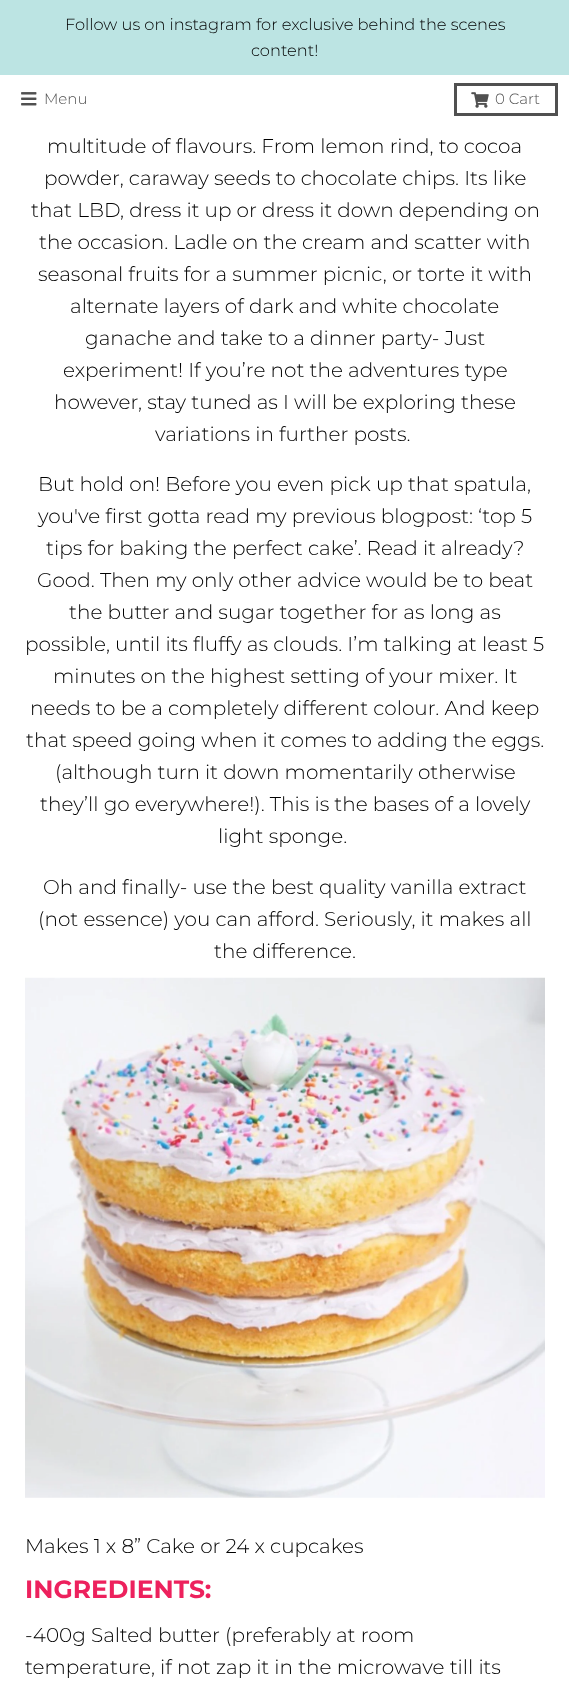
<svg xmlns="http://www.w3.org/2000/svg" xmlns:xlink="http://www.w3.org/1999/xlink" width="569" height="1700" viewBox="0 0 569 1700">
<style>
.cls-1{font:300 16.25px Montserrat;fill:#000000}
.cls-2{font:300 15px Montserrat;fill:#505050}
.cls-3{font:300 20px Montserrat;fill:#000000}
.cls-4{font:bold 25px Montserrat;fill:#ed215d}
</style>
<rect width="100%" height="100%" fill="#ffffff"/>
<rect fill="#bce4e3" x="0" y="0" width="569" height="75"/>
<image xlink:href="image0.png" x="21" y="92" width="16" height="14"/>
<rect fill="none" stroke="#505050" stroke-width="3" x="455.5" y="84.5" width="101" height="30"/>
<image xlink:href="image1.png" x="471" y="92" width="18" height="16"/>
<image xlink:href="image2.png" x="25" y="977" width="520" height="521"/>
<text class="cls-1" x="65" y="30">Follow us on instagram for exclusive behind the scenes</text>
<text class="cls-1" x="251" y="56">content!</text>
<text class="cls-2" x="44" y="104">Menu</text>
<text class="cls-2" x="495" y="104">0 Cart</text>
<text class="cls-3" x="47" y="153">multitude of flavours. From lemon rind, to cocoa</text>
<text class="cls-3" x="44" y="185">powder, caraway seeds to chocolate chips. Its like</text>
<text class="cls-3" x="31" y="217">that LBD, dress it up or dress it down depending on</text>
<text class="cls-3" x="39" y="249">the occasion. Ladle on the cream and scatter with</text>
<text class="cls-3" x="38" y="281">seasonal fruits for a summer picnic, or torte it with</text>
<text class="cls-3" x="70" y="313">alternate layers of dark and white chocolate</text>
<text class="cls-3" x="85" y="345">ganache and take to a dinner party- Just</text>
<text class="cls-3" x="63" y="377">experiment! If you’re not the adventures type</text>
<text class="cls-3" x="54" y="409">however, stay tuned as I will be exploring these</text>
<text class="cls-3" x="155" y="441">variations in further posts.</text>
<text class="cls-3"><tspan x="38" y="491">But hold on! Before you even pick up that spatula,</tspan><tspan x="38" y="523">you've first gotta read my previous blogpost: ‘top 5</tspan></text>
<text class="cls-3" x="46" y="555">tips for baking the perfect cake’. Read it already?</text>
<text class="cls-3" x="37" y="587">Good. Then my only other advice would be to beat</text>
<text class="cls-3" x="69" y="619">the butter and sugar together for as long as</text>
<text class="cls-3" x="25" y="651">possible, until its fluffy as clouds. I’m talking at least 5</text>
<text class="cls-3" x="53" y="683">minutes on the highest setting of your mixer. It</text>
<text class="cls-3" x="30" y="715">needs to be a completely different colour. And keep</text>
<text class="cls-3" x="26" y="747">that speed going when it comes to adding the eggs.</text>
<text class="cls-3" x="55" y="779">(although turn it down momentarily otherwise</text>
<text class="cls-3" x="40" y="811">they’ll go everywhere!). This is the bases of a lovely</text>
<text class="cls-3" x="218" y="843">light sponge.</text>
<text class="cls-3" x="43" y="894">Oh and finally- use the best quality vanilla extract</text>
<text class="cls-3" x="38" y="926">(not essence) you can afford. Seriously, it makes all</text>
<text class="cls-3" x="214" y="958">the difference.</text>
<text class="cls-3" x="25" y="1553">Makes 1 x 8” Cake or 24 x cupcakes</text>
<text class="cls-4" x="25" y="1598">INGREDIENTS:</text>
<text class="cls-3"><tspan x="25" y="1642">-400g Salted butter (preferably at room</tspan><tspan x="25" y="1674">temperature, if not zap it in the microwave till its</tspan></text>
</svg>
